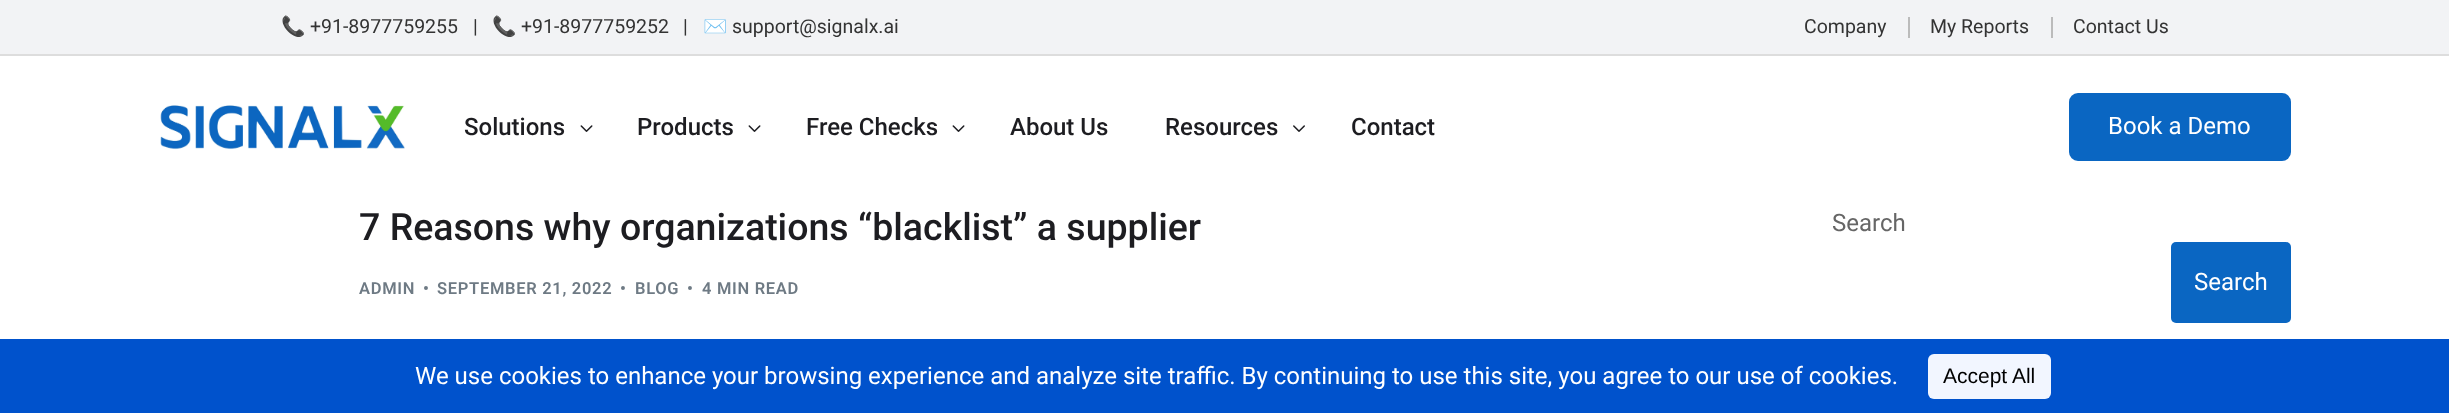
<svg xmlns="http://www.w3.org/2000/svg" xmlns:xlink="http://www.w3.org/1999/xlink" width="2449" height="413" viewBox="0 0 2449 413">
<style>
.cls-1{font:19.5px Noto Color Emoji;fill:#333333}
.cls-2{font:19.5px Roboto;fill:#333333}
.cls-3{font:500 24px Roboto;fill:#1d1d21}
.cls-4{font:24px Roboto;fill:#ffffff}
.cls-5{font:500 37.5px Roboto;fill:#1d1d21}
.cls-6{font:600 16.5px Roboto;letter-spacing:0.7px;fill:#6e7a84}
.cls-7{font:24px Roboto;fill:#666666}
.cls-8{font:21px Liberation Sans;fill:#000000}
</style>
<rect width="100%" height="100%" fill="#ffffff"/>
<rect fill="#f2f3f5" x="0" y="0" width="2449" height="54"/>
<rect fill="#dddddd" x="0" y="54" width="2449" height="2"/>
<rect fill="#bbbbbb" x="1908" y="17" width="2" height="21"/>
<rect fill="#bbbbbb" x="2051" y="17" width="2" height="21"/>
<image xlink:href="image0.png" x="160" y="105" width="245" height="45"/>
<image xlink:href="image1.png" x="580" y="125" width="13" height="7"/>
<image xlink:href="image1.png" x="748" y="125" width="13" height="7"/>
<image xlink:href="image1.png" x="952" y="125" width="13" height="7"/>
<image xlink:href="image2.png" x="1293" y="125" width="12" height="7"/>
<rect fill="#0a66c2" x="2069" y="93" width="222" height="68" rx="9"/>
<rect fill="#0a66c2" x="2171" y="242" width="120" height="81" rx="5"/>
<rect fill="#0052cc" x="0" y="339" width="2449" height="74"/>
<rect fill="#f2f6ff" x="1928" y="354" width="123" height="45" rx="6"/>
<text class="cls-1" x="281" y="33">📞</text>
<text class="cls-2" x="310" y="33">+91-8977759255</text>
<text class="cls-2" x="473" y="33">|</text>
<text class="cls-1" x="492" y="33">📞</text>
<text class="cls-2" x="521" y="33">+91-8977759252</text>
<text class="cls-2" x="683" y="33">|</text>
<text class="cls-1" x="703" y="33">✉️</text>
<text class="cls-2" x="732" y="33">support@signalx.ai</text>
<text class="cls-2" x="1804" y="33">Company</text>
<text class="cls-2" x="1930" y="33">My Reports</text>
<text class="cls-2" x="2073" y="33">Contact Us</text>
<text class="cls-3" x="464" y="135">Solutions</text>
<text class="cls-3" x="637" y="135">Products</text>
<text class="cls-3" x="806" y="135">Free Checks</text>
<text class="cls-3" x="1010" y="135">About Us</text>
<text class="cls-3" x="1165" y="135">Resources</text>
<text class="cls-3" x="1351" y="135">Contact</text>
<text class="cls-4" x="2108" y="134">Book a Demo</text>
<text class="cls-5" x="359" y="240">7 Reasons why organizations “blacklist” a supplier</text>
<text class="cls-6" x="359" y="294">ADMIN</text>
<text class="cls-6" x="423" y="294">•</text>
<text class="cls-6" x="437" y="294">SEPTEMBER 21, 2022</text>
<text class="cls-6" x="620" y="294">•</text>
<text class="cls-6" x="635" y="294">BLOG</text>
<text class="cls-6" x="687" y="294">•</text>
<text class="cls-6" x="702" y="294">4 MIN READ</text>
<text class="cls-7" x="1832" y="231">Search</text>
<text class="cls-4" x="2194" y="290">Search</text>
<text class="cls-4" x="415" y="384">We use cookies to enhance your browsing experience and analyze site traffic. By continuing to use this site, you agree to our use of cookies.</text>
<text class="cls-8" x="1943" y="383">Accept All</text>
</svg>
